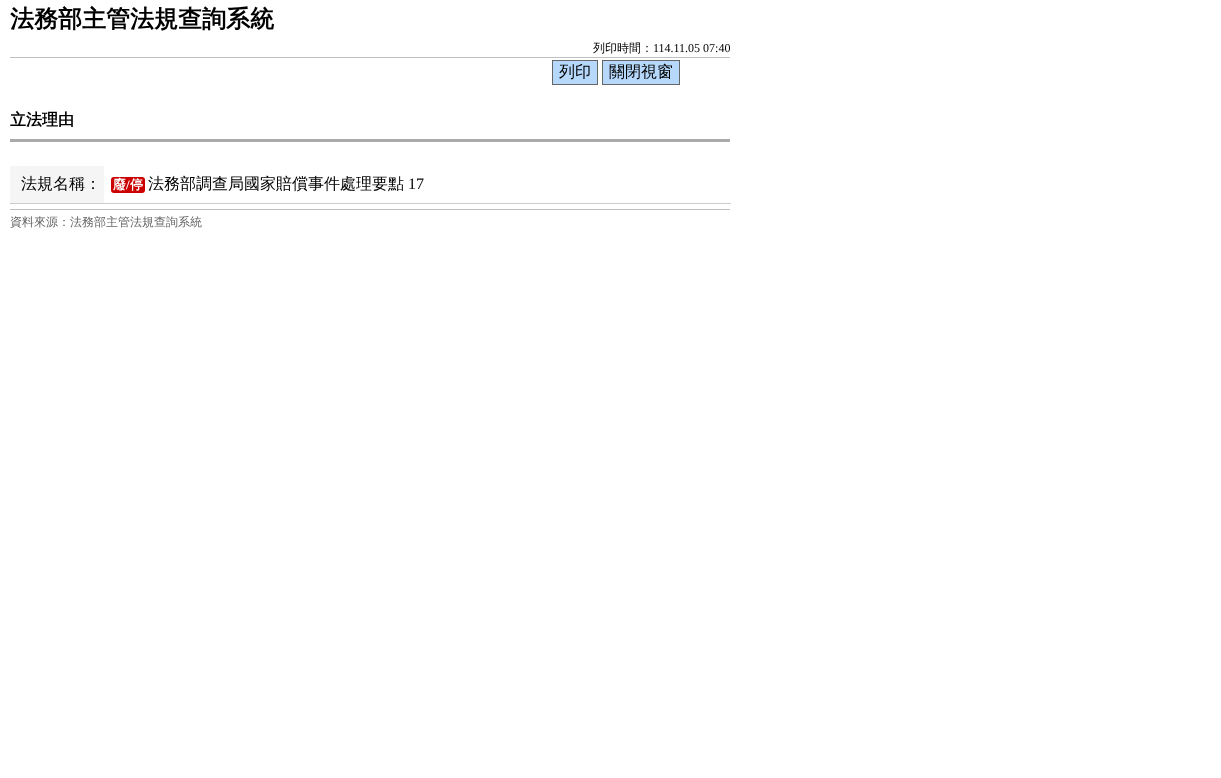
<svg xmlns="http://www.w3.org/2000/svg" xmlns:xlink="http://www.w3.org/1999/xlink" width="1221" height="778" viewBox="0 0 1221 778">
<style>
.cls-1{font:bold 24px WenQuanYi Zen Hei;fill:#000000}
.cls-2{font:500 12px WenQuanYi Zen Hei;fill:#000000}
.cls-3{font:12px Liberation Serif;fill:#000000}
.cls-4{font:500 16px WenQuanYi Zen Hei;fill:#000000}
.cls-5{font:bold 16px WenQuanYi Zen Hei;fill:#000000}
.cls-6{font:bold 13px WenQuanYi Zen Hei;fill:#ffffff}
.cls-7{font:bold 13px Liberation Serif;fill:#ffffff}
.cls-8{font:16px Liberation Serif;fill:#000000}
.cls-9{font:500 12px WenQuanYi Zen Hei;fill:#666666}
</style>
<rect width="100%" height="100%" fill="#ffffff"/>
<rect fill="#c0c0c0" x="10" y="57" width="720" height="1"/>
<rect fill="#b5d8fb" stroke="#666666" x="552.5" y="60.5" width="45" height="24"/>
<rect fill="#b5d8fb" stroke="#666666" x="602.5" y="60.5" width="77" height="24"/>
<rect fill="#aaaaaa" x="10" y="139" width="720" height="3"/>
<rect fill="#f5f5f5" x="10" y="166" width="94" height="37"/>
<rect fill="#cccccc" x="10" y="203" width="721" height="1"/>
<rect fill="#cc0000" x="111" y="177" width="34" height="16" rx="3"/>
<rect fill="#c0c0c0" x="10" y="209" width="720" height="1"/>
<text class="cls-1" x="10" y="27">法務部主管法規查詢系統</text>
<text class="cls-2" x="593" y="52">列印時間：</text>
<text class="cls-3" x="653" y="52">114.11.05 07:40</text>
<text class="cls-4" x="559" y="77">列印</text>
<text class="cls-4" x="609" y="77">關閉視窗</text>
<text class="cls-5" x="10" y="125">立法理由</text>
<text class="cls-4" x="21" y="189">法規名稱：</text>
<text class="cls-6" x="113" y="189">廢</text>
<text class="cls-7" x="126" y="189">/</text>
<text class="cls-6" x="130" y="189">停</text>
<text class="cls-4" x="148" y="189">法務部調查局國家賠償事件處理要點</text>
<text class="cls-8" x="408" y="189">17</text>
<text class="cls-9" x="10" y="226">資料來源：法務部主管法規查詢系統</text>
</svg>
